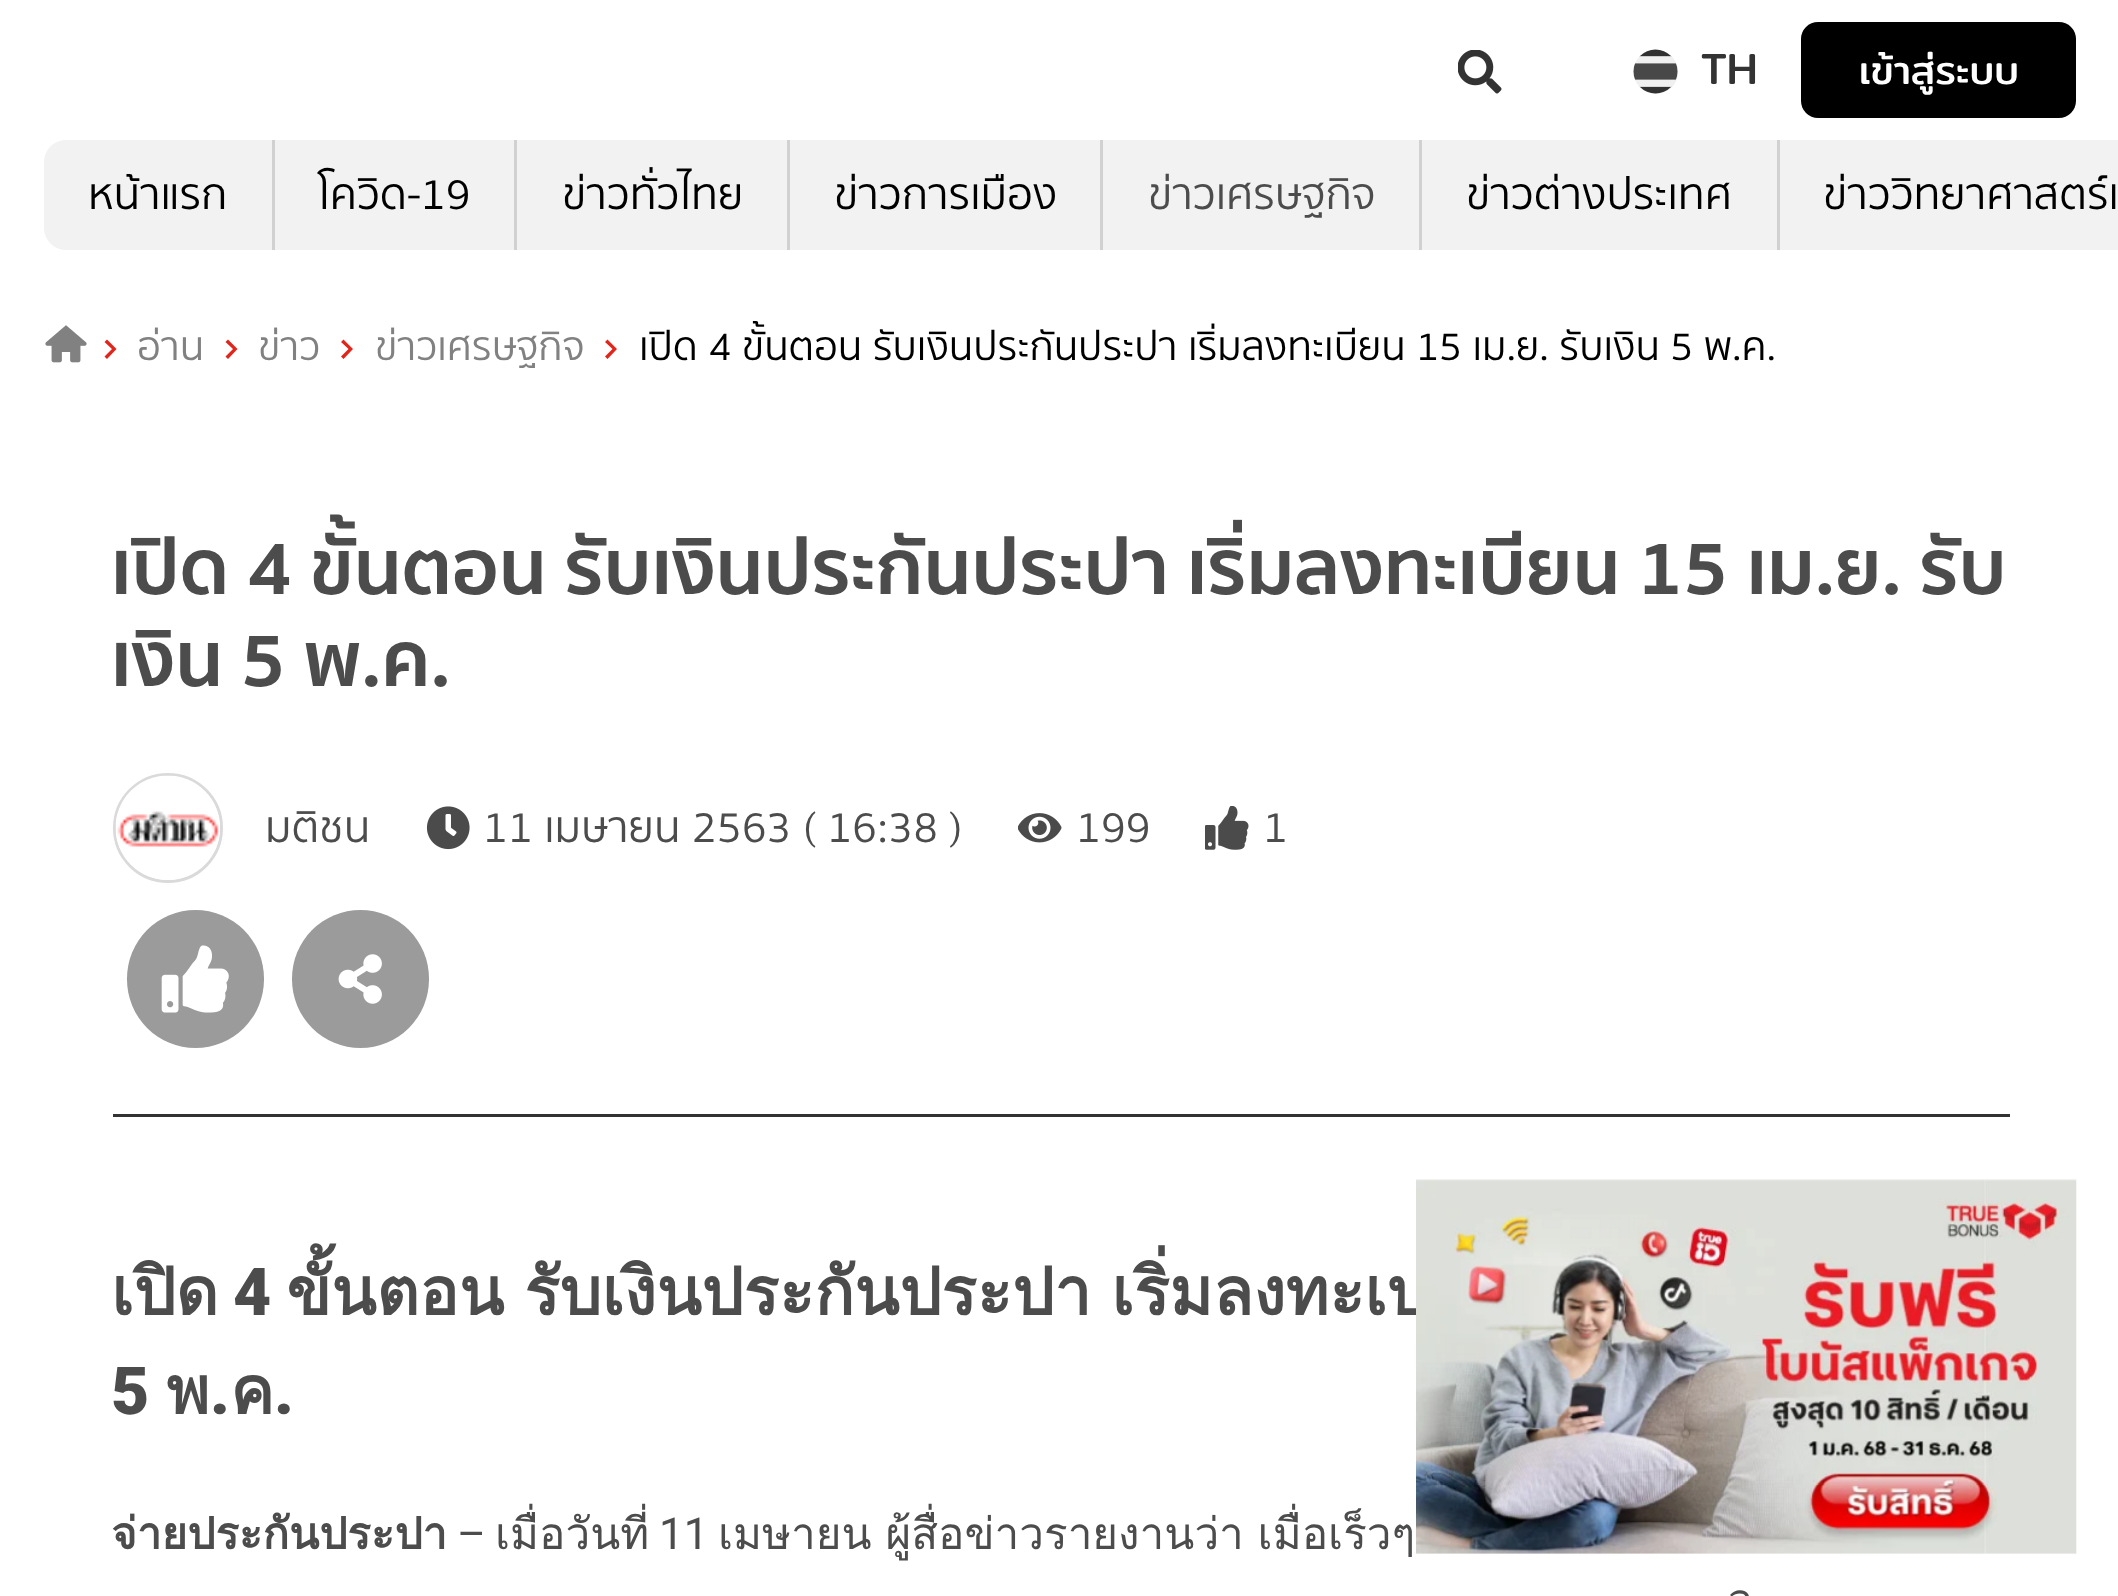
<svg xmlns="http://www.w3.org/2000/svg" xmlns:xlink="http://www.w3.org/1999/xlink" width="2118" height="1596" viewBox="0 0 2118 1596">
<style>
.cls-1{font:44px Mitr;fill:#333333}
.cls-2{font:39.5px Mitr;fill:#ffffff}
.cls-3{font:44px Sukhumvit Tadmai;fill:#000000}
.cls-4{font:44px Sukhumvit Tadmai;fill:#4c4c4c}
.cls-5{font:40.5px Sukhumvit Tadmai;fill:#818181}
.cls-6{font:40.5px Sukhumvit Tadmai;fill:#000000}
.cls-7{font:bold 77px Sukhumvit Tadmai;fill:#4c4c4c}
.cls-8{font:bold 66px Loma;fill:#4c4c4c}
.cls-9{font:900 66px Roboto;fill:#4c4c4c}
.cls-10{font:bold 44px Loma;fill:#4c4c4c}
.cls-11{font:44px Roboto;fill:#4c4c4c}
.cls-12{font:44px Loma;fill:#4c4c4c}
</style>
<rect width="100%" height="100%" fill="#ffffff"/>
<image xlink:href="image0.png" x="1458" y="50" width="44" height="44"/>
<circle fill="#efefef" cx="1656" cy="72" r="22"/>
<image xlink:href="image1.png" x="1633" y="49" width="45" height="45"/>
<rect fill="#000000" x="1801" y="22" width="275" height="96" rx="17"/>
<path fill="#f2f2f2" d="M66 140H272V250H66C54 250 44 240 44 228V162C44 150 54 140 66 140Z"/>
<rect fill="#f2f2f2" x="275" y="140" width="239" height="110"/>
<rect fill="#d1d1d1" x="272" y="140" width="3" height="110"/>
<rect fill="#f2f2f2" x="517" y="140" width="270" height="110"/>
<rect fill="#d1d1d1" x="514" y="140" width="3" height="110"/>
<rect fill="#f2f2f2" x="790" y="140" width="310" height="110"/>
<rect fill="#d1d1d1" x="787" y="140" width="3" height="110"/>
<rect fill="#f2f2f2" x="1103" y="140" width="316" height="110"/>
<rect fill="#d1d1d1" x="1100" y="140" width="3" height="110"/>
<rect fill="#f2f2f2" x="1422" y="140" width="355" height="110"/>
<rect fill="#d1d1d1" x="1419" y="140" width="3" height="110"/>
<rect fill="#f2f2f2" x="1780" y="140" width="338" height="110"/>
<rect fill="#d1d1d1" x="1777" y="140" width="3" height="110"/>
<image xlink:href="image2.png" x="45" y="325" width="42" height="38"/>
<path fill="#e2241a" d="M107 339.5L104.5 342L112 349L104.5 356.5L107 359L116.5 349Z"/>
<path fill="#e2241a" d="M228 339.5L225.5 342L233 349L225.5 356.5L228 359L237.5 349Z"/>
<path fill="#e2241a" d="M343.5 339.5L341 342L348.5 349L341 356.5L343.5 359L353 349Z"/>
<path fill="#e2241a" d="M607.5 339.5L605 342L612.5 349L605 356.5L607.5 359L617 349Z"/>
<rect fill="#333333" x="113" y="1114" width="1897" height="3"/>
<circle fill="none" stroke="#dadada" stroke-width="3" cx="168" cy="828" r="53.5"/>
<image xlink:href="image3.png" x="115" y="775" width="105" height="105"/>
<image xlink:href="image4.png" x="426" y="806" width="44" height="44"/>
<image xlink:href="image5.png" x="1018" y="813" width="44" height="30"/>
<image xlink:href="image6.png" x="1205" y="806" width="44" height="44"/>
<rect fill="#9b9b9b" x="127" y="910" width="137" height="138" rx="68.5"/>
<image xlink:href="image7.png" x="161" y="945" width="68" height="68"/>
<rect fill="#9b9b9b" x="292" y="910" width="137" height="138" rx="68.5"/>
<image xlink:href="image8.png" x="338" y="954" width="44" height="50"/>
<text class="cls-1" x="1701" y="84">TH</text>
<text class="cls-2" x="1859" y="84">เข้าสู่ระบบ</text>
<text class="cls-3" x="88" y="209">หน้าแรก</text>
<text class="cls-3" x="318" y="209">โควิด-19</text>
<text class="cls-3" x="562" y="209">ข่าวทั่วไทย</text>
<text class="cls-3" x="834" y="209">ข่าวการเมือง</text>
<text class="cls-4" x="1148" y="209">ข่าวเศรษฐกิจ</text>
<text class="cls-3" x="1466" y="209">ข่าวต่างประเทศ</text>
<text class="cls-3" x="1823" y="209">ข่าววิทยาศาสตร์แ</text>
<text class="cls-5" x="137" y="360">อ่าน</text>
<text class="cls-5" x="258" y="360">ข่าว</text>
<text class="cls-5" x="375" y="360">ข่าวเศรษฐกิจ</text>
<text class="cls-6" x="639" y="360">เปิด 4 ขั้นตอน รับเงินประกันประปา เริ่มลงทะเบียน 15 เม.ย. รับเงิน 5 พ.ค.</text>
<text class="cls-7"><tspan x="111" y="594">เปิด 4 ขั้นตอน รับเงินประกันประปา เริ่มลงทะเบียน 15 เม.ย. รับ</tspan><tspan x="111" y="686">เงิน 5 พ.ค.</tspan></text>
<text class="cls-4" x="265" y="842">มติชน</text>
<text class="cls-4" x="483" y="842">11 เมษายน 2563 ( 16:38 )</text>
<text class="cls-4" x="1076" y="842">199</text>
<text class="cls-4" x="1263" y="842">1</text>
<text class="cls-8" x="111" y="1315">เปิด</text>
<text class="cls-9" x="233" y="1315">4</text>
<text class="cls-8" x="286" y="1315" word-spacing="-2">ขั้นตอน รับเงินประกันประปา เริ่มลงทะเบ</text>
<text class="cls-9" x="111" y="1414">5</text>
<text class="cls-8" x="166" y="1414">พ</text>
<text class="cls-9" x="210" y="1414">.</text>
<text class="cls-8" x="230" y="1414">ค</text>
<text class="cls-9" x="274" y="1414">.</text>
<text class="cls-10" x="111" y="1549">จ่ายประกันประปา</text>
<text class="cls-11" x="457" y="1549">–</text>
<text class="cls-12" x="495" y="1549">เมื่อวันที่</text>
<text class="cls-11" x="659" y="1549">11</text>
<text class="cls-12" x="718" y="1549" word-spacing="-1">เมษายน ผู้สื่อข่าวรายงานว่า เมื่อเร็วๆ</text>
<text class="cls-12" x="1728" y="1615" word-spacing="-3">ว</text>
<image xlink:href="image9.png" x="1416" y="1179" width="661" height="375"/>
</svg>
